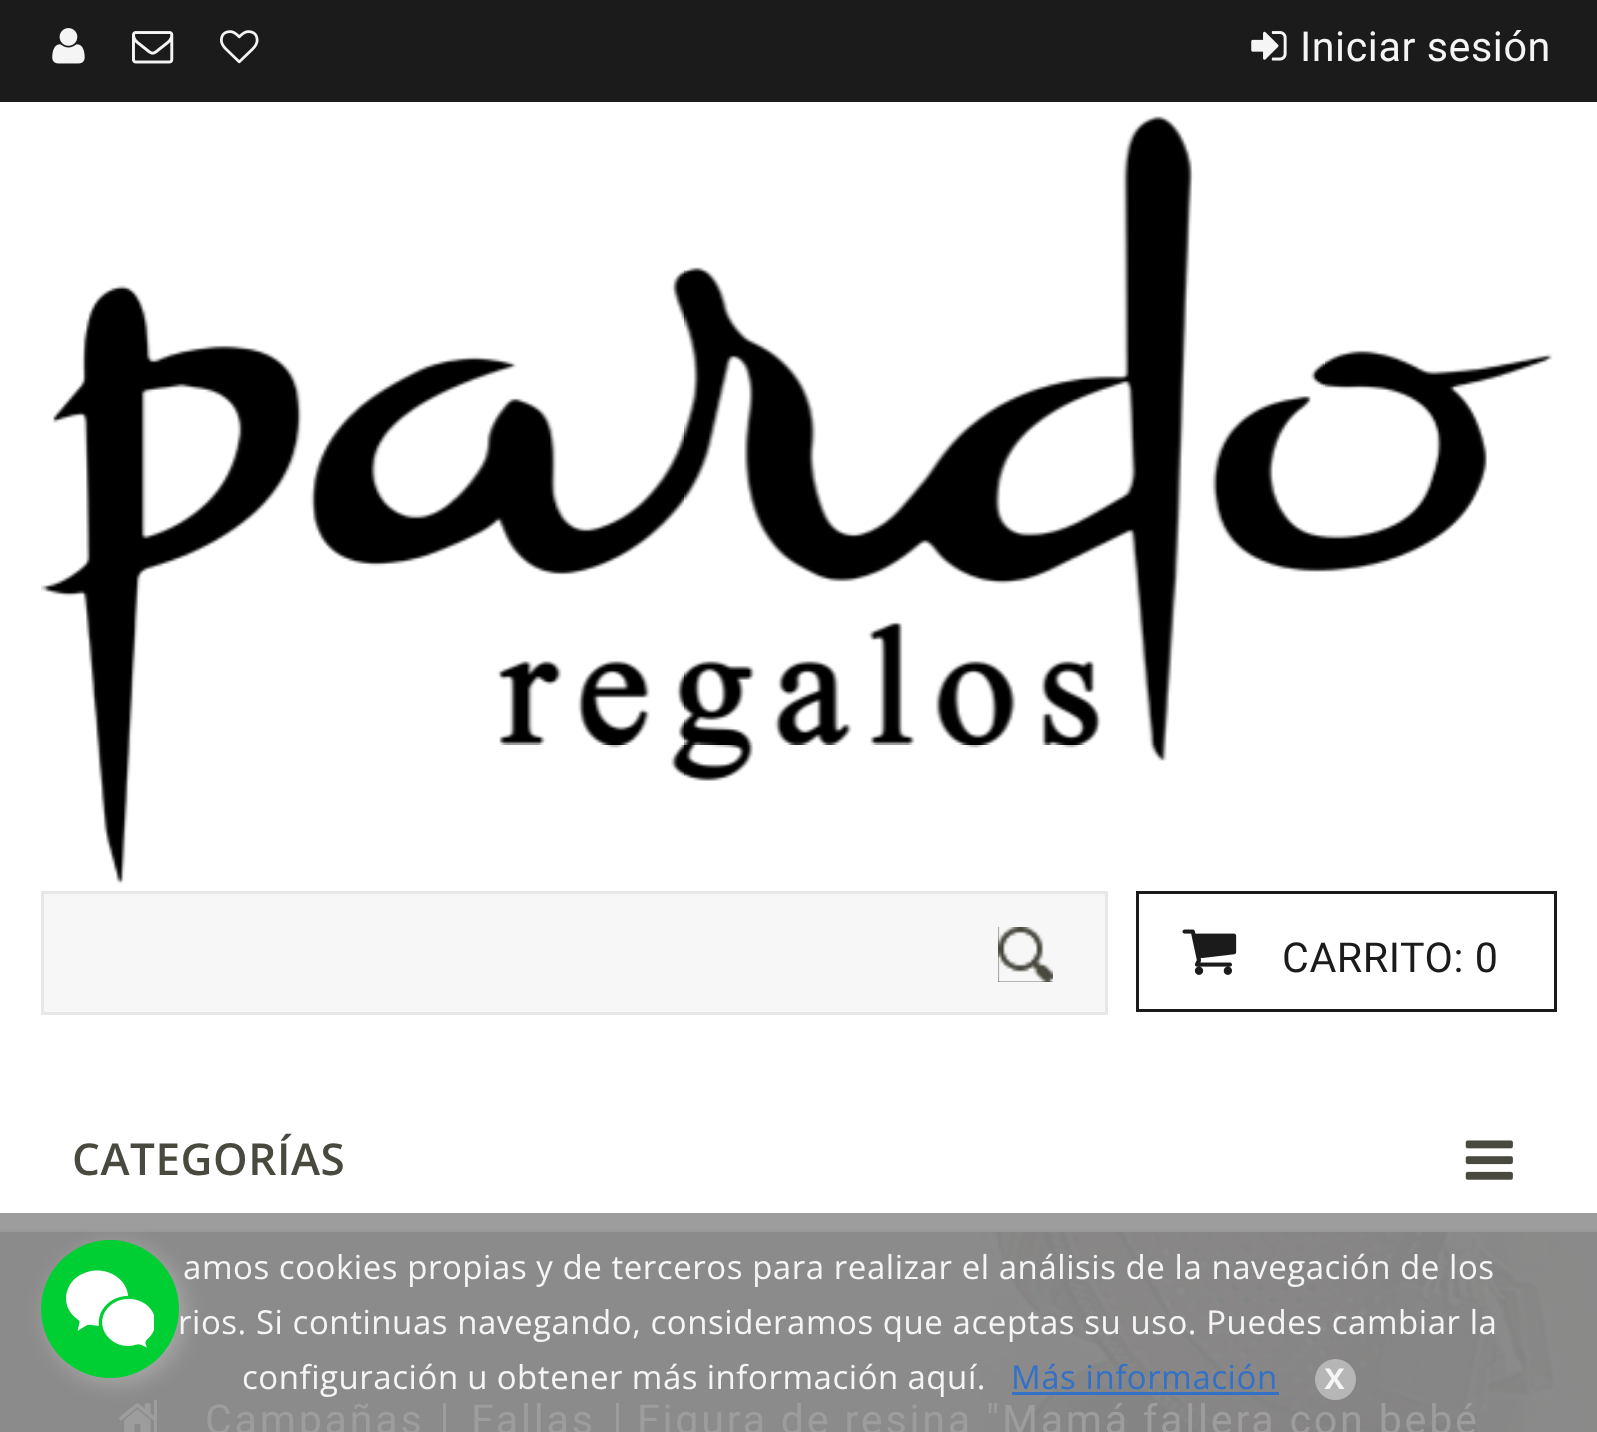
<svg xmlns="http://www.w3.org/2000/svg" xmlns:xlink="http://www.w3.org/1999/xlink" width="1597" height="1432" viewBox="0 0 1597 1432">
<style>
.cls-1{font:41.25px Roboto;letter-spacing:0.55px;fill:#f5f5f5}
.cls-2{font:41.25px Roboto;letter-spacing:0.55px;fill:#1b1b1b}
.cls-3{font:600 44px Open Sans;letter-spacing:0.55px;fill:#494940}
.cls-4{font:41.25px Roboto;letter-spacing:2.75px;fill:#9d9d9d}
.cls-5{font:33px Open Sans;letter-spacing:0.55px;fill:#f5f5f5}
.cls-6{font:33px Open Sans;letter-spacing:0.55px;fill:#3371c8}
.cls-7{font:600 38px Open Sans;letter-spacing:0.55px;fill:#f5f5f5}
</style>
<rect width="100%" height="100%" fill="#ffffff"/>
<rect fill="#9d9d9d" x="0" y="1213" width="1597" height="16"/>
<rect fill="#1b1b1b" x="0" y="0" width="1597" height="102"/>
<image xlink:href="image0.png" x="52" y="28" width="33" height="36"/>
<image xlink:href="image1.png" x="132" y="31" width="42" height="33"/>
<image xlink:href="image2.png" x="220" y="30" width="39" height="34"/>
<image xlink:href="image3.png" x="1251" y="31" width="36" height="30"/>
<image xlink:href="image4.png" x="41" y="116" width="1512" height="768"/>
<rect fill="#f7f7f7" stroke="#e7e7e7" stroke-width="3" x="42.5" y="892.5" width="1064" height="121"/>
<rect fill="#494940" x="998" y="927" width="55" height="55"/>
<image xlink:href="image5.png" x="998" y="927" width="55" height="55"/>
<rect fill="none" stroke="#1b1b1b" stroke-width="3" x="1137.5" y="892.5" width="418" height="118"/>
<image xlink:href="image6.png" x="1182" y="929" width="55" height="46"/>
<image xlink:href="image7.png" x="1465" y="1140" width="48" height="40"/>
<image xlink:href="image8.png" x="0" y="1232" width="1597" height="200"/>
<rect fill="#9a9a9a" x="0" y="1229" width="1597" height="3"/>
<image xlink:href="image9.png" x="118" y="1403" width="36" height="29"/>
<rect fill="#9d9d9d" x="154" y="1400" width="3" height="32"/>
<rect fill="#9d9d9d" x="443" y="1403" width="3" height="29"/>
<rect fill="#9d9d9d" x="616" y="1403" width="3" height="29"/>
<rect fill="#aaaaaa" filter="blur(11px)" x="47" y="1246" width="137" height="137" rx="68.5"/>
<circle fill="#00cf34" cx="110" cy="1309" r="69"/>
<image xlink:href="image10.png" x="66" y="1270" width="88" height="78"/>
<rect fill="#2a6fcf" fill-opacity="0.9" x="1012" y="1392" width="267" height="3"/>
<circle fill="#bbbbbb" fill-opacity="0.9" cx="1335.5" cy="1379.5" r="20.5"/>
<text class="cls-1" x="1300" y="61">Iniciar sesión</text>
<text class="cls-2" x="1282" y="972">CARRITO: 0</text>
<text class="cls-3" x="72" y="1175">CATEGORÍAS</text>
<text class="cls-4" x="205" y="1434">Campañas</text>
<text class="cls-4" x="471" y="1434">Fallas</text>
<text class="cls-4" x="637" y="1434">Figura de resina "Mamá fallera con bebé</text>
<text class="cls-5" x="183" y="1279">amos cookies propias y de terceros para realizar el análisis de la navegación de los</text>
<text class="cls-5" x="178" y="1334">rios. Si continuas navegando, consideramos que aceptas su uso. Puedes cambiar la</text>
<text class="cls-5" x="242" y="1389" word-spacing="-0.5">configuración u obtener más información aquí.</text>
<text class="cls-6" x="1011" y="1389">Más información</text>
<text class="cls-7" x="1324" y="1389">x</text>
</svg>
